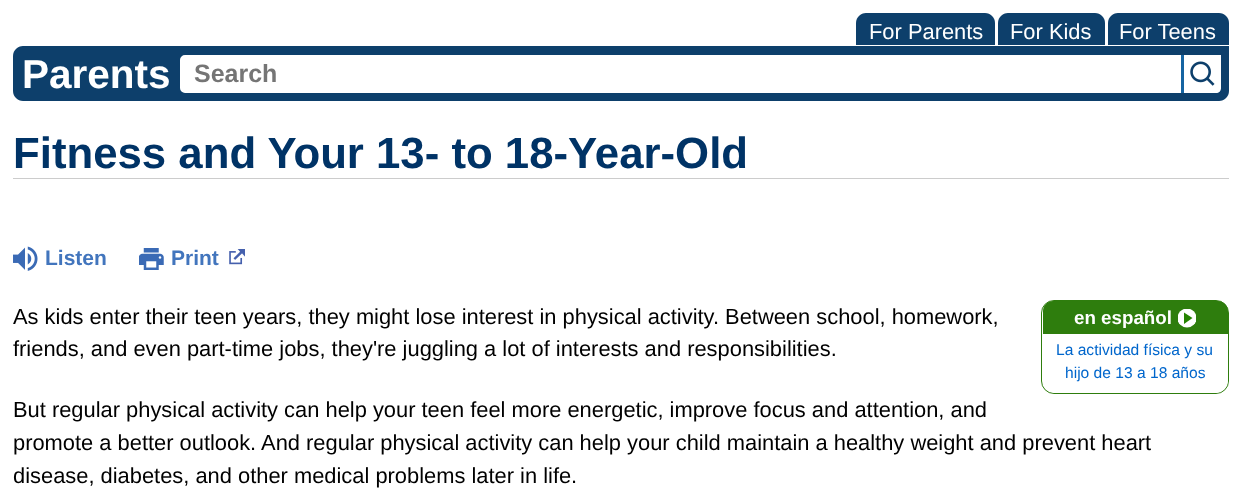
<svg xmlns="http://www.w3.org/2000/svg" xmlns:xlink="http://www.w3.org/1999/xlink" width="1241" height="492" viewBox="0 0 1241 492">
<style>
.cls-1{font:21.88px Liberation Sans;fill:#ffffff}
.cls-2{font:bold 40.5px Liberation Sans;fill:#ffffff}
.cls-3{font:bold 25px Liberation Sans;fill:#757575}
.cls-4{font:bold 43.75px Liberation Sans;fill:#003366}
.cls-5{font:bold 21px Liberation Sans;fill:#4275bd}
.cls-6{font:21.88px Liberation Sans;fill:#000000}
.cls-7{font:bold 18.75px Liberation Sans;fill:#ffffff}
.cls-8{font:15.6px Liberation Sans;fill:#0066cc}
</style>
<defs>
<clipPath id="clip1"><rect x="1178" y="309" width="18" height="19"/></clipPath>
</defs>
<rect width="100%" height="100%" fill="#ffffff"/>
<path fill="#0d3f6b" d="M866 13H985C990.5 13 995 17.5 995 23V45H856V23C856 17.5 860.5 13 866 13Z"/>
<path fill="#0d3f6b" d="M1008 13H1095C1100.5 13 1105 17.5 1105 23V45H998V23C998 17.5 1002.5 13 1008 13Z"/>
<path fill="#0d3f6b" d="M1118 13H1219C1224.5 13 1229 17.5 1229 23V45H1108V23C1108 17.5 1112.5 13 1118 13Z"/>
<path fill="#0d3f6b" d="M23 46H1229V91C1229 96.5 1224.5 101 1219 101H23C17.5 101 13 96.5 13 91V56C13 50.5 17.5 46 23 46Z"/>
<path fill="#ffffff" stroke="#ffffff" stroke-width="8" d="M185 59H1177V89H185C184.5 89 184 88.5 184 88V60C184 59.5 184.5 59 185 59Z"/>
<rect fill="#1564a2" x="1181" y="55" width="3" height="38"/>
<path fill="#ffffff" d="M1184 55H1221V88C1221 91 1219 93 1216 93H1184Z"/>
<image xlink:href="image0.png" x="1190" y="61" width="25" height="25"/>
<rect fill="#cccccc" x="13" y="178" width="1216" height="1"/>
<image xlink:href="image1.png" x="13" y="246" width="25" height="25"/>
<image xlink:href="image2.png" x="139" y="248" width="25" height="22"/>
<image xlink:href="image3.png" x="229" y="249" width="16" height="16"/>
<rect fill="none" stroke="#2e7d0d" x="1041.5" y="300.5" width="187" height="93" rx="12.5"/>
<path fill="#2e7d0d" d="M1053 301H1218C1223.5 301 1228 305.5 1228 311V334H1043V311C1043 305.5 1047.5 301 1053 301Z"/>
<g clip-path="url(#clip1)">
<circle fill="#ffffff" cx="1187" cy="318" r="9.5"/>
</g>
<path fill="#258300" fill-rule="evenodd" d="M1184 312.5V324L1192.5 318Z"/>
<path fill="#ffffff" d="M1043 334H1228V380C1228 387 1222 393 1215 393H1056C1049 393 1043 387 1043 380Z"/>
<text class="cls-1" x="869" y="39">For Parents</text>
<text class="cls-1" x="1010" y="39">For Kids</text>
<text class="cls-1" x="1119" y="39">For Teens</text>
<text class="cls-2" x="22" y="88">Parents</text>
<text class="cls-3" x="194" y="82">Search</text>
<text class="cls-4" x="13" y="168">Fitness and Your 13- to 18-Year-Old</text>
<text class="cls-5" x="45" y="265">Listen</text>
<text class="cls-5" x="171" y="265">Print</text>
<text class="cls-6"><tspan x="13" y="324">As kids enter their teen years, they might lose interest in physical activity. Between school, homework,</tspan><tspan x="13" y="356">friends, and even part-time jobs, they're juggling a lot of interests and responsibilities.</tspan></text>
<text class="cls-6"><tspan x="13" y="417">But regular physical activity can help your teen feel more energetic, improve focus and attention, and</tspan><tspan x="13" y="450">promote a better outlook. And regular physical activity can help your child maintain a healthy weight and prevent heart</tspan><tspan x="13" y="483">disease, diabetes, and other medical problems later in life.</tspan></text>
<text class="cls-7" x="1074" y="324">en español</text>
<text class="cls-8" x="1056" y="355">La actividad física y su</text>
<text class="cls-8" x="1065" y="378">hijo de 13 a 18 años</text>
</svg>
